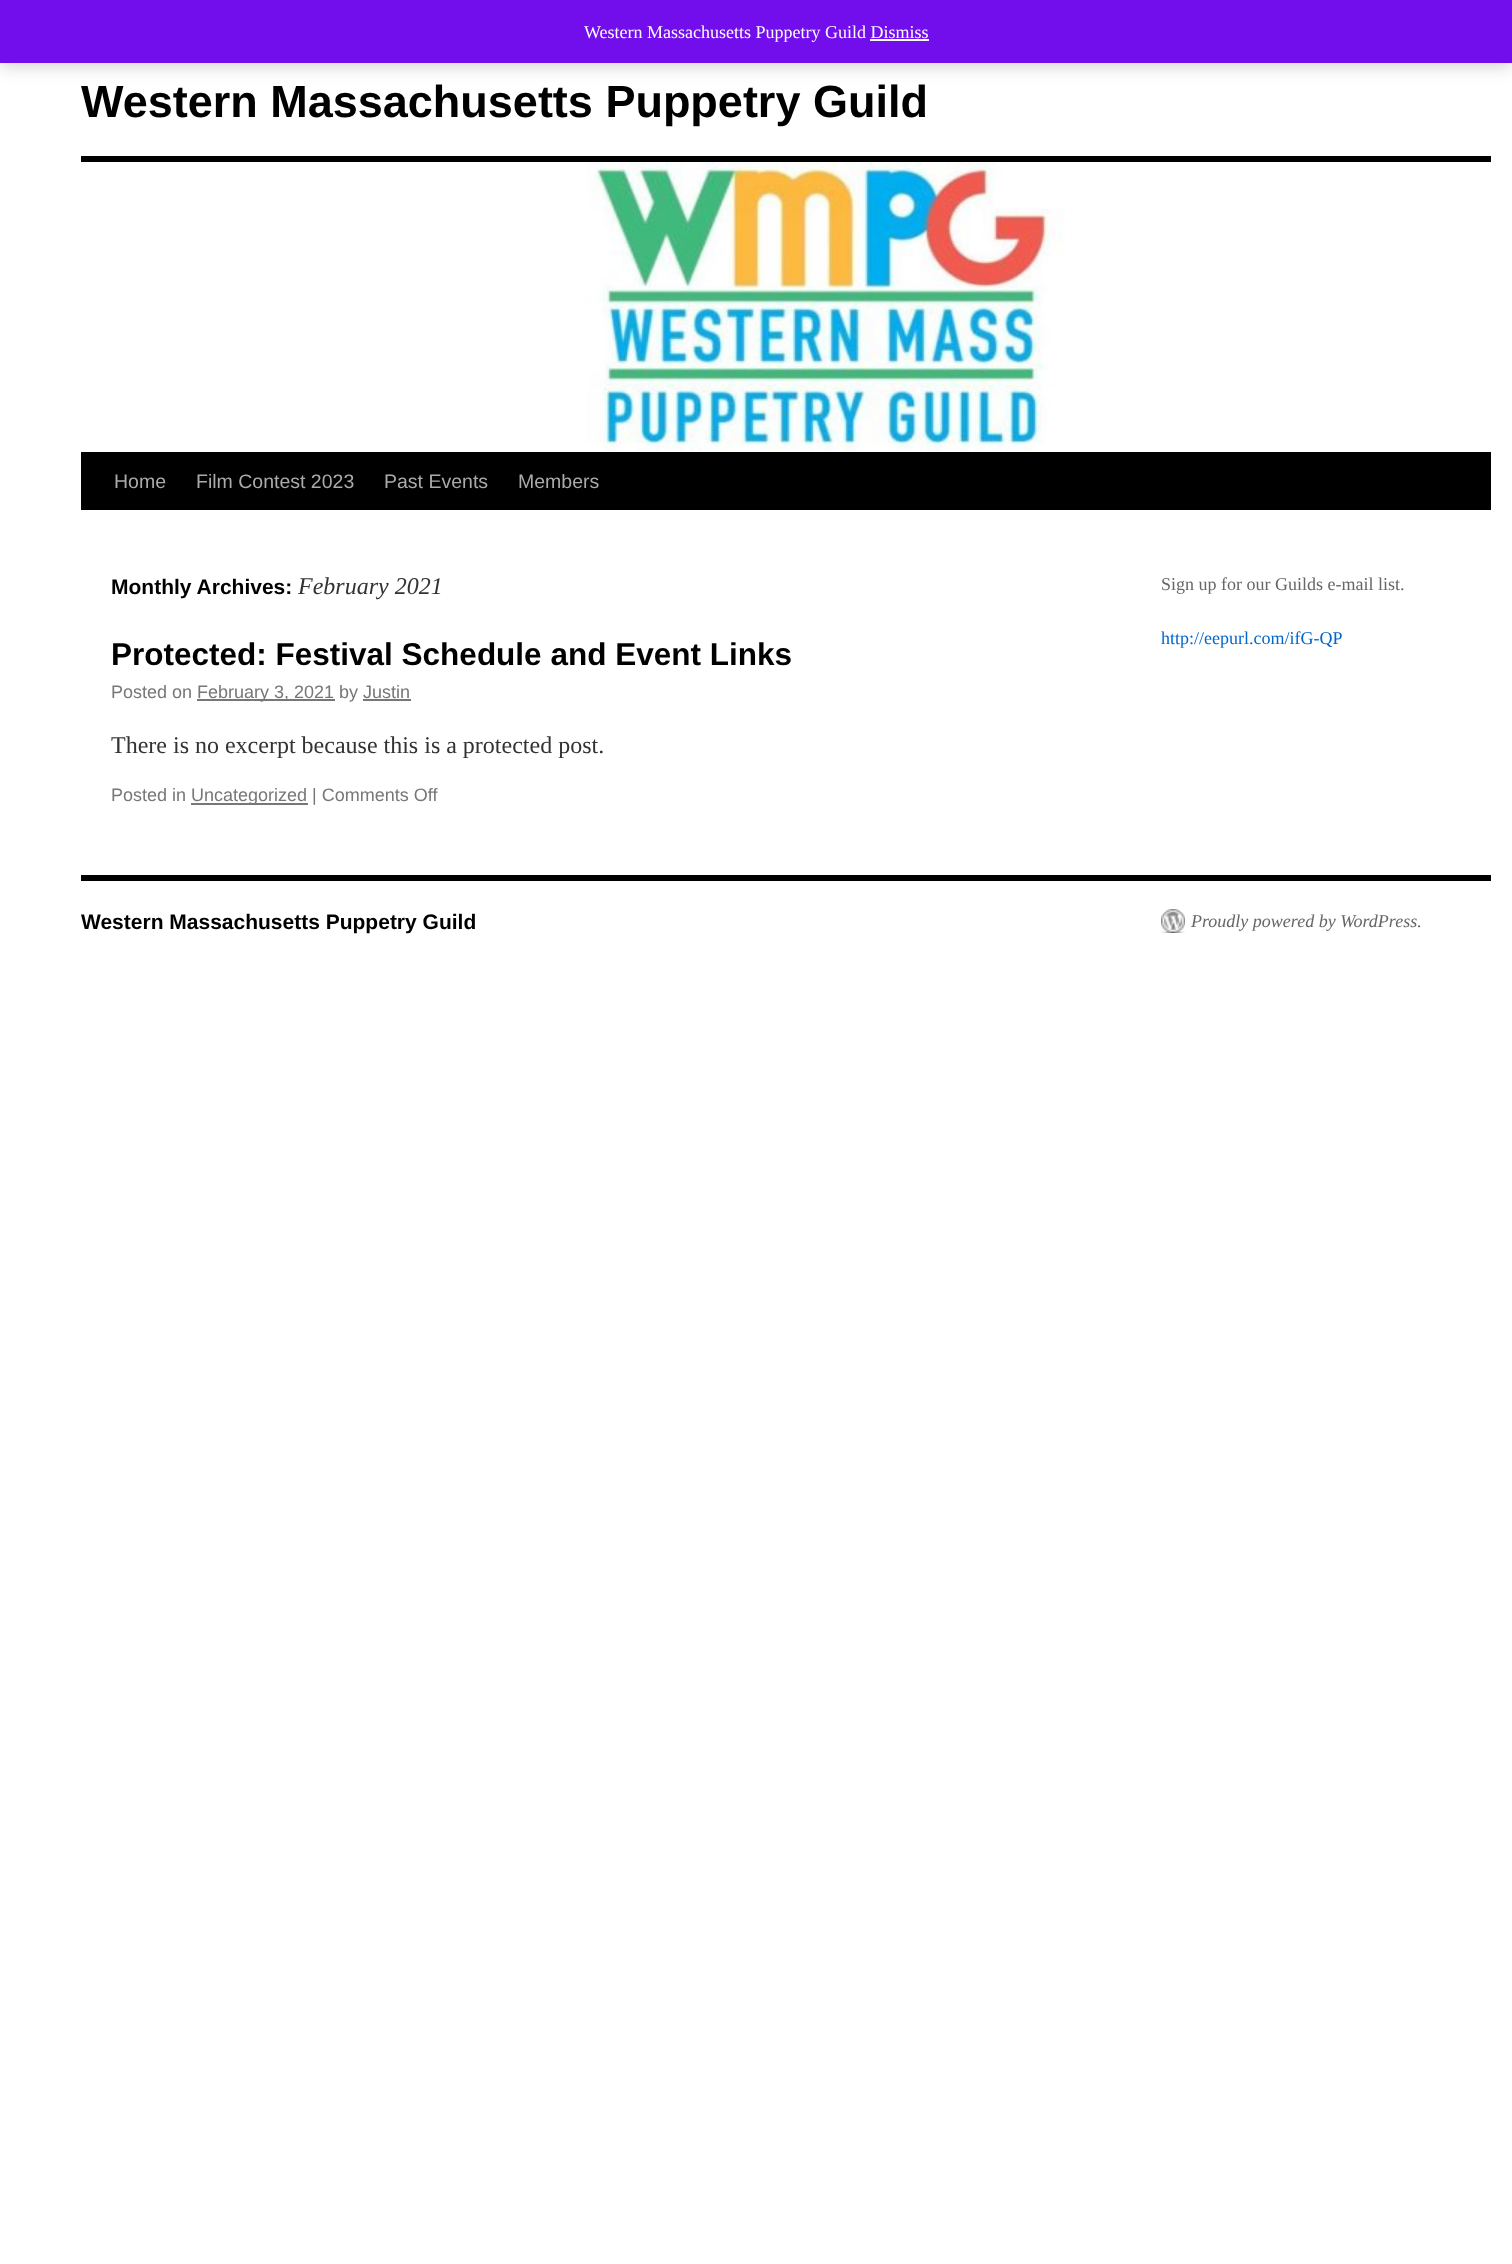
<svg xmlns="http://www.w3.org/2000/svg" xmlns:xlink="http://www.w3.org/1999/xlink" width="1512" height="2264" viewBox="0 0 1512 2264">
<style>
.cls-1{font:18px Liberation Serif;fill:#fcfbfe}
.cls-2{font:bold 45px Liberation Sans;fill:#000000}
.cls-3{font:19.5px Liberation Sans;fill:#aaaaaa}
.cls-4{font:bold 21px Liberation Sans;fill:#000000}
.cls-5{font:italic 24px Liberation Serif;fill:#333333}
.cls-6{font:bold 31.5px Liberation Sans;fill:#000000}
.cls-7{font:18px Liberation Sans;fill:#777777}
.cls-8{font:24px Liberation Serif;fill:#333333}
.cls-9{font:18px Liberation Serif;fill:#666666}
.cls-10{font:18px Liberation Serif;fill:#0066cc}
.cls-11{font:italic 18px Liberation Serif;fill:#666666}
</style>
<rect width="100%" height="100%" fill="#ffffff"/>
<rect fill="#000000" fill-opacity="0.2" filter="blur(9px)" x="0" y="2" width="1512" height="63"/>
<rect fill="#720eec" x="0" y="0" width="1512" height="63"/>
<rect fill="#fcfbfe" x="870" y="39" width="59" height="2"/>
<rect fill="#000000" x="81" y="156" width="1410" height="6"/>
<rect fill="#000000" x="81" y="452" width="1410" height="58"/>
<image xlink:href="image0.png" x="586" y="162" width="479" height="290"/>
<rect fill="#777777" x="197" y="699" width="138" height="2"/>
<rect fill="#777777" x="363" y="699" width="48" height="2"/>
<rect fill="#777777" x="191" y="803" width="117" height="2"/>
<rect fill="#000000" x="81" y="875" width="1410" height="6"/>
<image xlink:href="image1.png" x="1161" y="909" width="24" height="24"/>
<text class="cls-1" x="584" y="38">Western Massachusetts Puppetry Guild Dismiss</text>
<text class="cls-2" x="81" y="117">Western Massachusetts Puppetry Guild</text>
<text class="cls-3" x="114" y="488">Home</text>
<text class="cls-3" x="196" y="488">Film Contest 2023</text>
<text class="cls-3" x="384" y="488">Past Events</text>
<text class="cls-3" x="518" y="488">Members</text>
<text class="cls-4" x="111" y="594">Monthly Archives:</text>
<text class="cls-5" x="298" y="594">February 2021</text>
<text class="cls-6" x="111" y="665">Protected: Festival Schedule and Event Links</text>
<text class="cls-7" x="111" y="698">Posted on</text>
<text class="cls-7" x="197" y="698">February 3, 2021 by Justin</text>
<text class="cls-8" x="111" y="753">There is no excerpt because this is a protected post.</text>
<text class="cls-7" x="111" y="801">Posted in</text>
<text class="cls-7" x="191" y="801">Uncategorized | Comments Off</text>
<text class="cls-9" x="1161" y="590">Sign up for our Guilds e-mail list.</text>
<text class="cls-10" x="1161" y="644">http://eepurl.com/ifG-QP</text>
<text class="cls-4" x="81" y="929">Western Massachusetts Puppetry Guild</text>
<text class="cls-11" x="1191" y="927">Proudly powered by WordPress.</text>
</svg>
